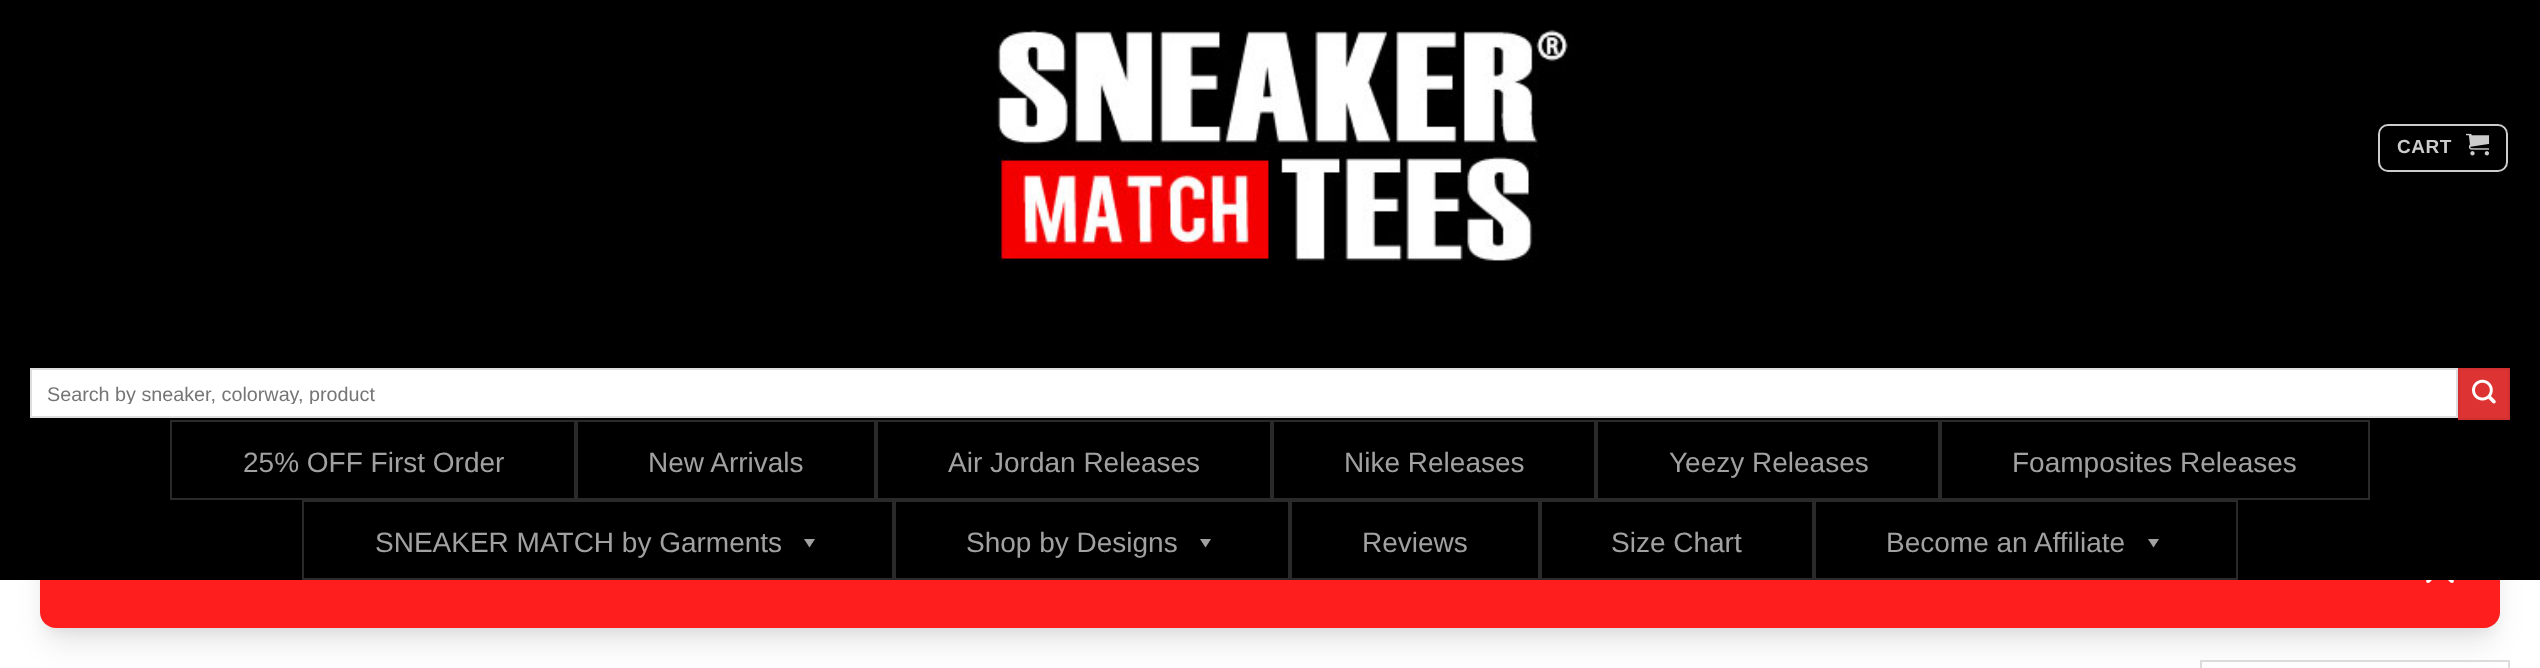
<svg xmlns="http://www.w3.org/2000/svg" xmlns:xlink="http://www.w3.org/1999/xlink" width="2540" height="668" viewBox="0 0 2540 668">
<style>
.cls-1{font:bold 19px Liberation Sans;letter-spacing:0.5px;fill:#cccccc}
.cls-2{font:19.75px Liberation Sans;fill:#757575}
.cls-3{font:28px Liberation Sans;fill:#a1a1a1}
</style>
<defs>
<clipPath id="clip1"><rect x="46" y="382" width="2388" height="22"/></clipPath>
</defs>
<rect width="100%" height="100%" fill="#ffffff"/>
<rect fill="#000000" fill-opacity="0.05" filter="blur(6px)" x="44" y="520" width="2452" height="112" rx="12"/>
<rect fill="none" stroke="#dddddd" stroke-width="2" x="2201" y="661" width="308" height="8"/>
<rect fill="#000000" fill-opacity="0.1" filter="blur(15px)" x="46" y="534" width="2448" height="108" rx="10"/>
<rect fill="#ff1e1e" x="40" y="508" width="2460" height="120" rx="16"/>
<path fill="#ffffff" d="M2453.5 555.5C2454 556.5 2454 557.5 2453.5 558.5L2429.5 582.5C2428.5 583 2427.5 583 2426.5 582.5C2426 581.5 2426 580.5 2426.5 579.5L2450.5 555.5C2451.5 555 2452.5 555 2453.5 555.5Z"/>
<path fill="#ffffff" d="M2426.5 555.5C2427.5 555 2428.5 555 2429.5 555.5L2453.5 579.5C2454 580.5 2454 581.5 2453.5 582.5C2452.5 583 2451.5 583 2450.5 582.5L2426.5 558.5C2426 557.5 2426 556.5 2426.5 555.5Z"/>
<rect fill="#000000" x="0" y="0" width="2540" height="580"/>
<image xlink:href="image0.png" x="997" y="29" width="575" height="233"/>
<rect fill="none" stroke="#cccccc" stroke-width="2" x="2379" y="125" width="128" height="46" rx="9"/>
<image xlink:href="image1.png" x="2466" y="133" width="24" height="23"/>
<rect fill="#ffffff" stroke="#dddddd" stroke-width="2" x="31" y="369" width="2426" height="48"/>
<rect fill="#dd3333" stroke="#d23030" stroke-width="2" x="2459" y="369" width="50" height="50"/>
<image xlink:href="image2.png" x="2472" y="379" width="24" height="25"/>
<rect fill="none" stroke="#2a2a2a" stroke-width="2" x="171" y="421" width="404" height="78"/>
<rect fill="none" stroke="#2a2a2a" stroke-width="2" x="577" y="421" width="298" height="78"/>
<rect fill="none" stroke="#2a2a2a" stroke-width="2" x="877" y="421" width="394" height="78"/>
<rect fill="none" stroke="#2a2a2a" stroke-width="2" x="1273" y="421" width="322" height="78"/>
<rect fill="none" stroke="#2a2a2a" stroke-width="2" x="1597" y="421" width="342" height="78"/>
<rect fill="none" stroke="#2a2a2a" stroke-width="2" x="1941" y="421" width="428" height="78"/>
<rect fill="none" stroke="#2a2a2a" stroke-width="2" x="303" y="501" width="590" height="78"/>
<path fill="#a1a1a1" d="M815 539L809.5 547.5L804 539Z"/>
<rect fill="none" stroke="#2a2a2a" stroke-width="2" x="895" y="501" width="394" height="78"/>
<path fill="#a1a1a1" d="M1211 539L1205.5 547.5L1200 539Z"/>
<rect fill="none" stroke="#2a2a2a" stroke-width="2" x="1291" y="501" width="248" height="78"/>
<rect fill="none" stroke="#2a2a2a" stroke-width="2" x="1541" y="501" width="272" height="78"/>
<rect fill="none" stroke="#2a2a2a" stroke-width="2" x="1815" y="501" width="422" height="78"/>
<path fill="#a1a1a1" d="M2159 539L2153.5 547.5L2148 539Z"/>
<text class="cls-1" x="2397" y="153">CART</text>
<g clip-path="url(#clip1)">
<text class="cls-2" x="47" y="401">Search by sneaker, colorway, product</text>
</g>
<text class="cls-3" x="243" y="472">25% OFF First Order</text>
<text class="cls-3" x="648" y="472">New Arrivals</text>
<text class="cls-3" x="948" y="472">Air Jordan Releases</text>
<text class="cls-3" x="1344" y="472">Nike Releases</text>
<text class="cls-3" x="1669" y="472">Yeezy Releases</text>
<text class="cls-3" x="2012" y="472">Foamposites Releases</text>
<text class="cls-3" x="375" y="552">SNEAKER MATCH by Garments</text>
<text class="cls-3" x="966" y="552">Shop by Designs</text>
<text class="cls-3" x="1362" y="552">Reviews</text>
<text class="cls-3" x="1611" y="552">Size Chart</text>
<text class="cls-3" x="1886" y="552">Become an Affiliate</text>
</svg>
